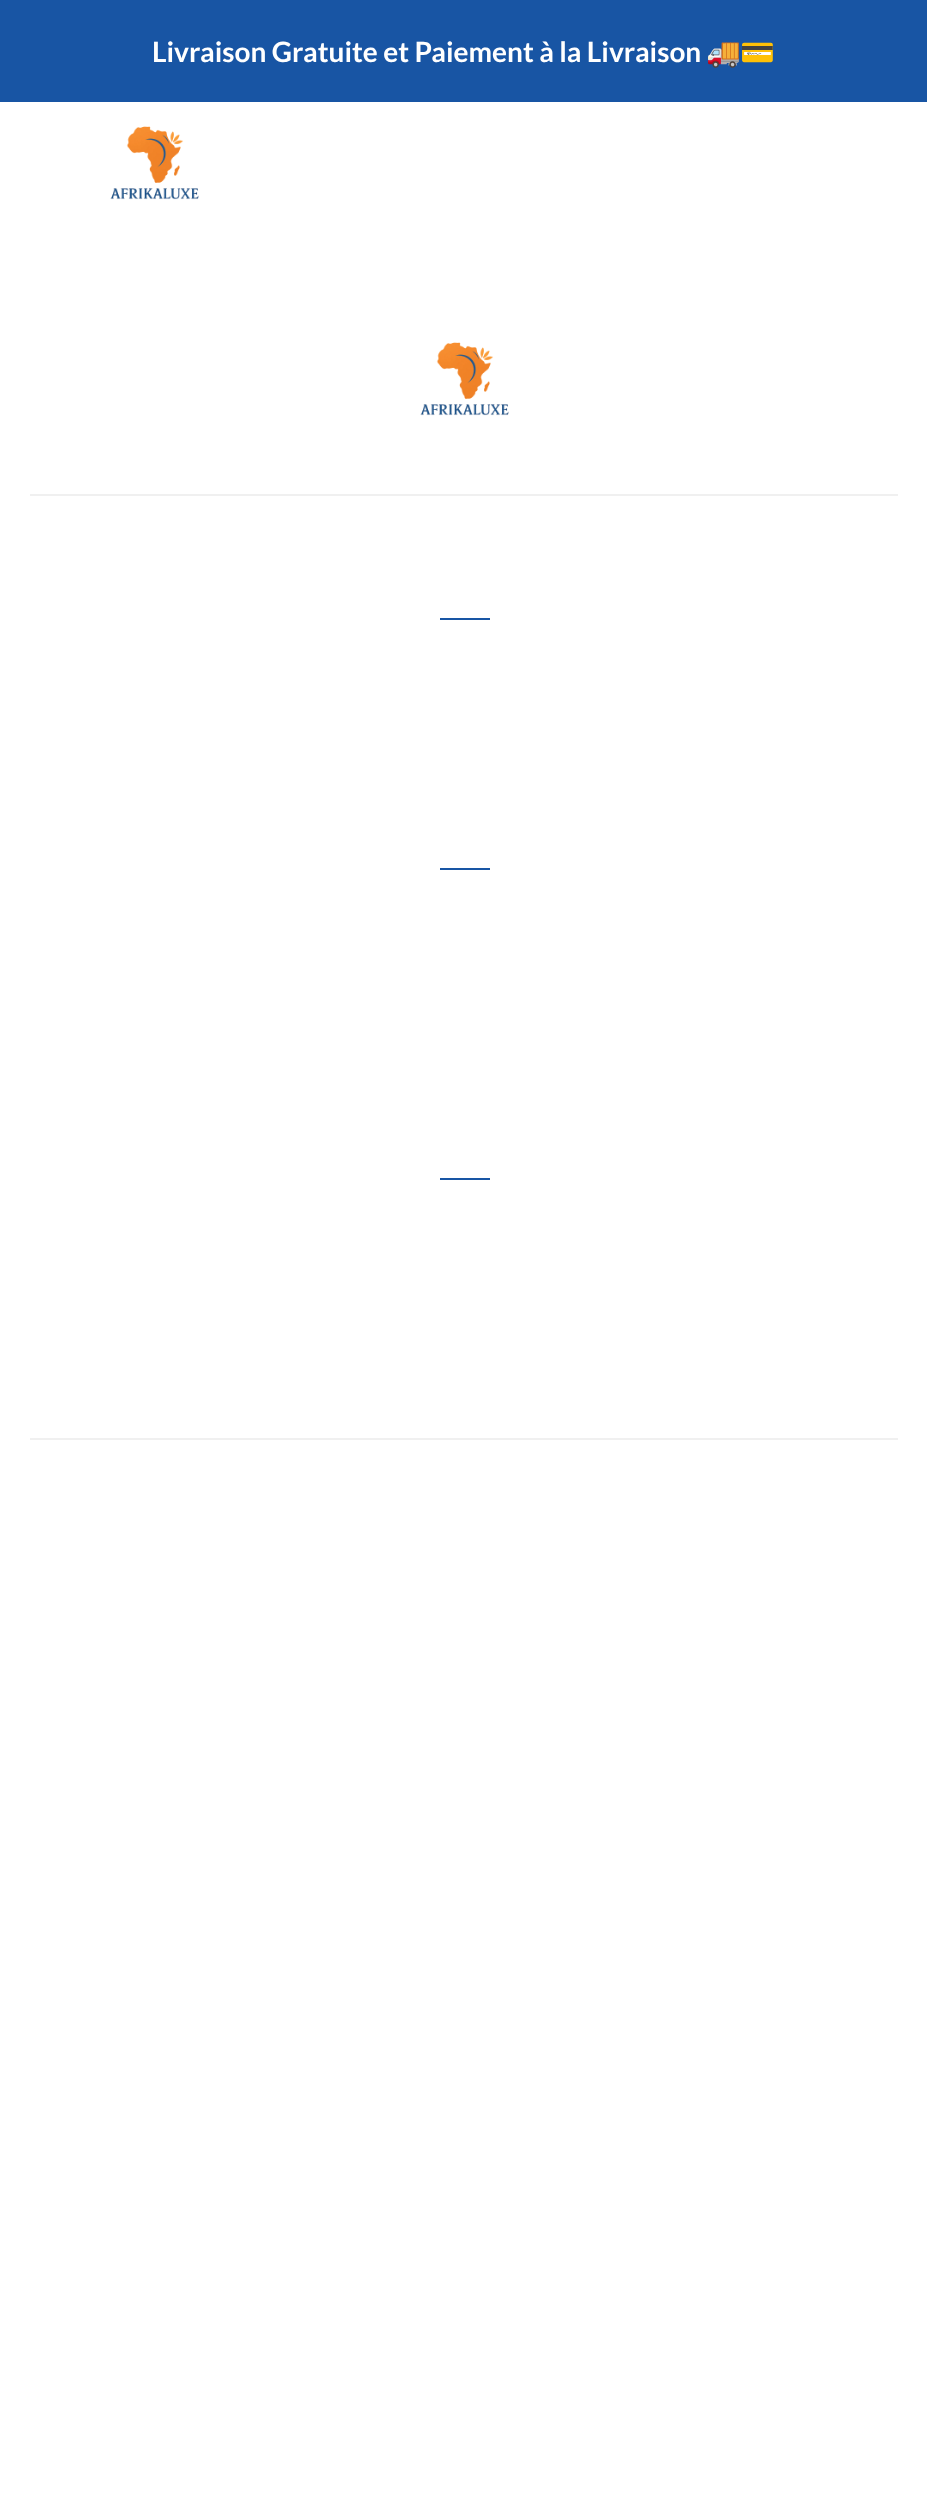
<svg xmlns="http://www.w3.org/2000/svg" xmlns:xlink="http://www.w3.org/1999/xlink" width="927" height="2506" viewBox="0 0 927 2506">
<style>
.cls-1{font:bold 28px Lato;fill:#ffffff}
.cls-2{font:bold 28px Noto Color Emoji;fill:#ffffff}
</style>
<rect width="100%" height="100%" fill="#ffffff"/>
<rect fill="#1855a4" x="0" y="0" width="927" height="102"/>
<image xlink:href="image0.png" x="110" y="126" width="89" height="74"/>
<image xlink:href="image1.png" x="420" y="342" width="89" height="74"/>
<rect fill="#f0f0f0" x="30" y="494" width="868" height="2"/>
<rect fill="#f0f0f0" x="30" y="1438" width="868" height="2"/>
<rect fill="#1855a4" x="440" y="618" width="50" height="2"/>
<rect fill="#1855a4" x="440" y="868" width="50" height="2"/>
<rect fill="#1855a4" x="440" y="1178" width="50" height="2"/>
<text class="cls-1" x="152" y="62">Livraison Gratuite et Paiement à la Livraison</text>
<text class="cls-2" x="706" y="62">🚚💳</text>
</svg>
